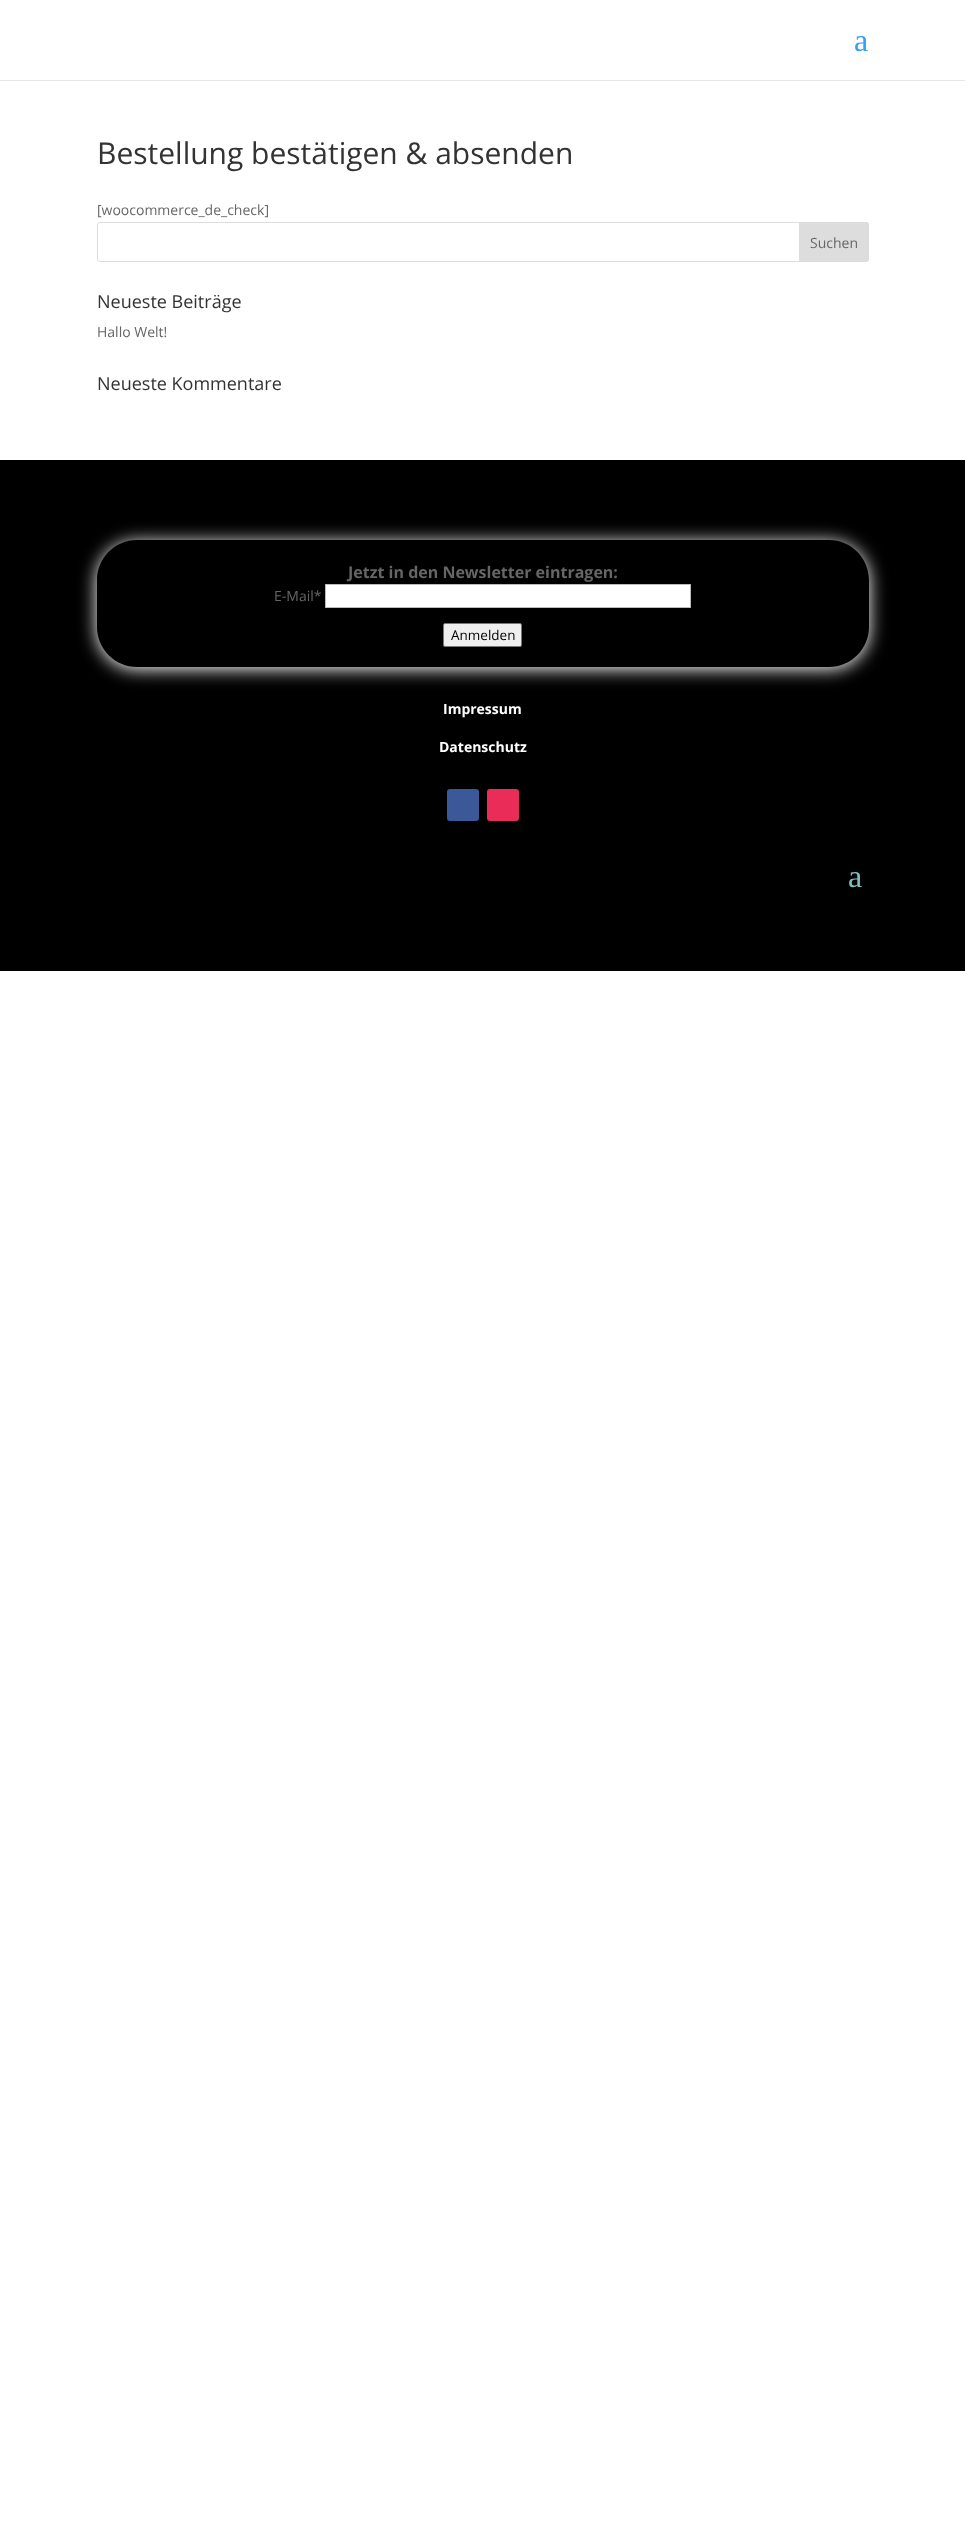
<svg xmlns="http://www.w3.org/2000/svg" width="965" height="2522">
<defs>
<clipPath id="clip1"><path d="M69 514h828v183h-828zm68 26h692c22 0 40 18 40 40v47c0 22-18 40-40 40h-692c-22 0-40-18-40-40v-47c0-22 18-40 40-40z" clip-rule="evenodd"/></clipPath>
</defs>
<rect width="100%" height="100%" fill="#fff"/>
<rect y="80" width="965" height="1" fill="#e6e6e6"/>
<text x="854" y="51" style="font-family:Liberation Serif;font-size:32px;fill:#2ea3f2">a</text>
<text x="97" y="164" style="font-family:Open Sans;font-size:30px;fill:#333">Bestellung bestätigen &amp; absenden</text>
<text x="97" y="215" style="font-family:Open Sans;font-size:14px;fill:#666">[woocommerce_de_check]</text>
<rect x="97.5" y="222.5" width="771" height="39" rx="2.5" fill="none" stroke="#ddd"/>
<path d="M799.5 222.5h66.5c1.5 0 2.5 1 2.5 2.5v34c0 1.5-1 2.5-2.5 2.5h-66.5z" fill="#ddd" stroke="#ddd"/>
<text x="810" y="248" style="font-family:Open Sans;font-size:14px;fill:#666">Suchen</text>
<text x="97" y="308" style="font-family:Open Sans;font-size:18px;fill:#333">Neueste Beiträge</text>
<text x="97" y="337" style="font-family:Open Sans;font-size:14px;fill:#666">Hallo Welt!</text>
<text x="97" y="390" style="font-family:Open Sans;font-size:18px;fill:#333">Neueste Kommentare</text>
<rect y="460" width="965" height="511" fill="#000"/>
<g clip-path="url(#clip1)">
<rect x="97" y="542" width="772" height="127" rx="40" fill="#fff" filter="blur(9px)"/>
</g>
<text x="348" y="578" style="font-family:Open Sans;font-size:16px;font-weight:bold;fill:#666">Jetzt in den Newsletter eintragen:</text>
<text x="274" y="601" style="font-family:Open Sans;font-size:14px;fill:#666">E-Mail*</text>
<rect x="325.5" y="584.5" width="365" height="23" fill="#fff" stroke="#bbb"/>
<rect x="443.5" y="623.5" width="78" height="23" rx="1.5" fill="#efefef" stroke="#767676"/>
<text x="451" y="640" style="font-family:Open Sans;font-size:13.5px;fill:#000">Anmelden</text>
<text x="443" y="714" style="font-family:Open Sans;font-size:14px;font-weight:bold;fill:#fff">Impressum</text>
<text x="439" y="752" style="font-family:Open Sans;font-size:14px;font-weight:bold;fill:#fff">Datenschutz</text>
<rect x="447" y="789" width="32" height="32" rx="3" fill="#3b5998"/>
<rect x="487" y="789" width="32" height="32" rx="3" fill="#ea2c59"/>
<text x="848" y="887" style="font-family:Liberation Serif;font-size:32px;fill:#7ebec5">a</text>
</svg>
